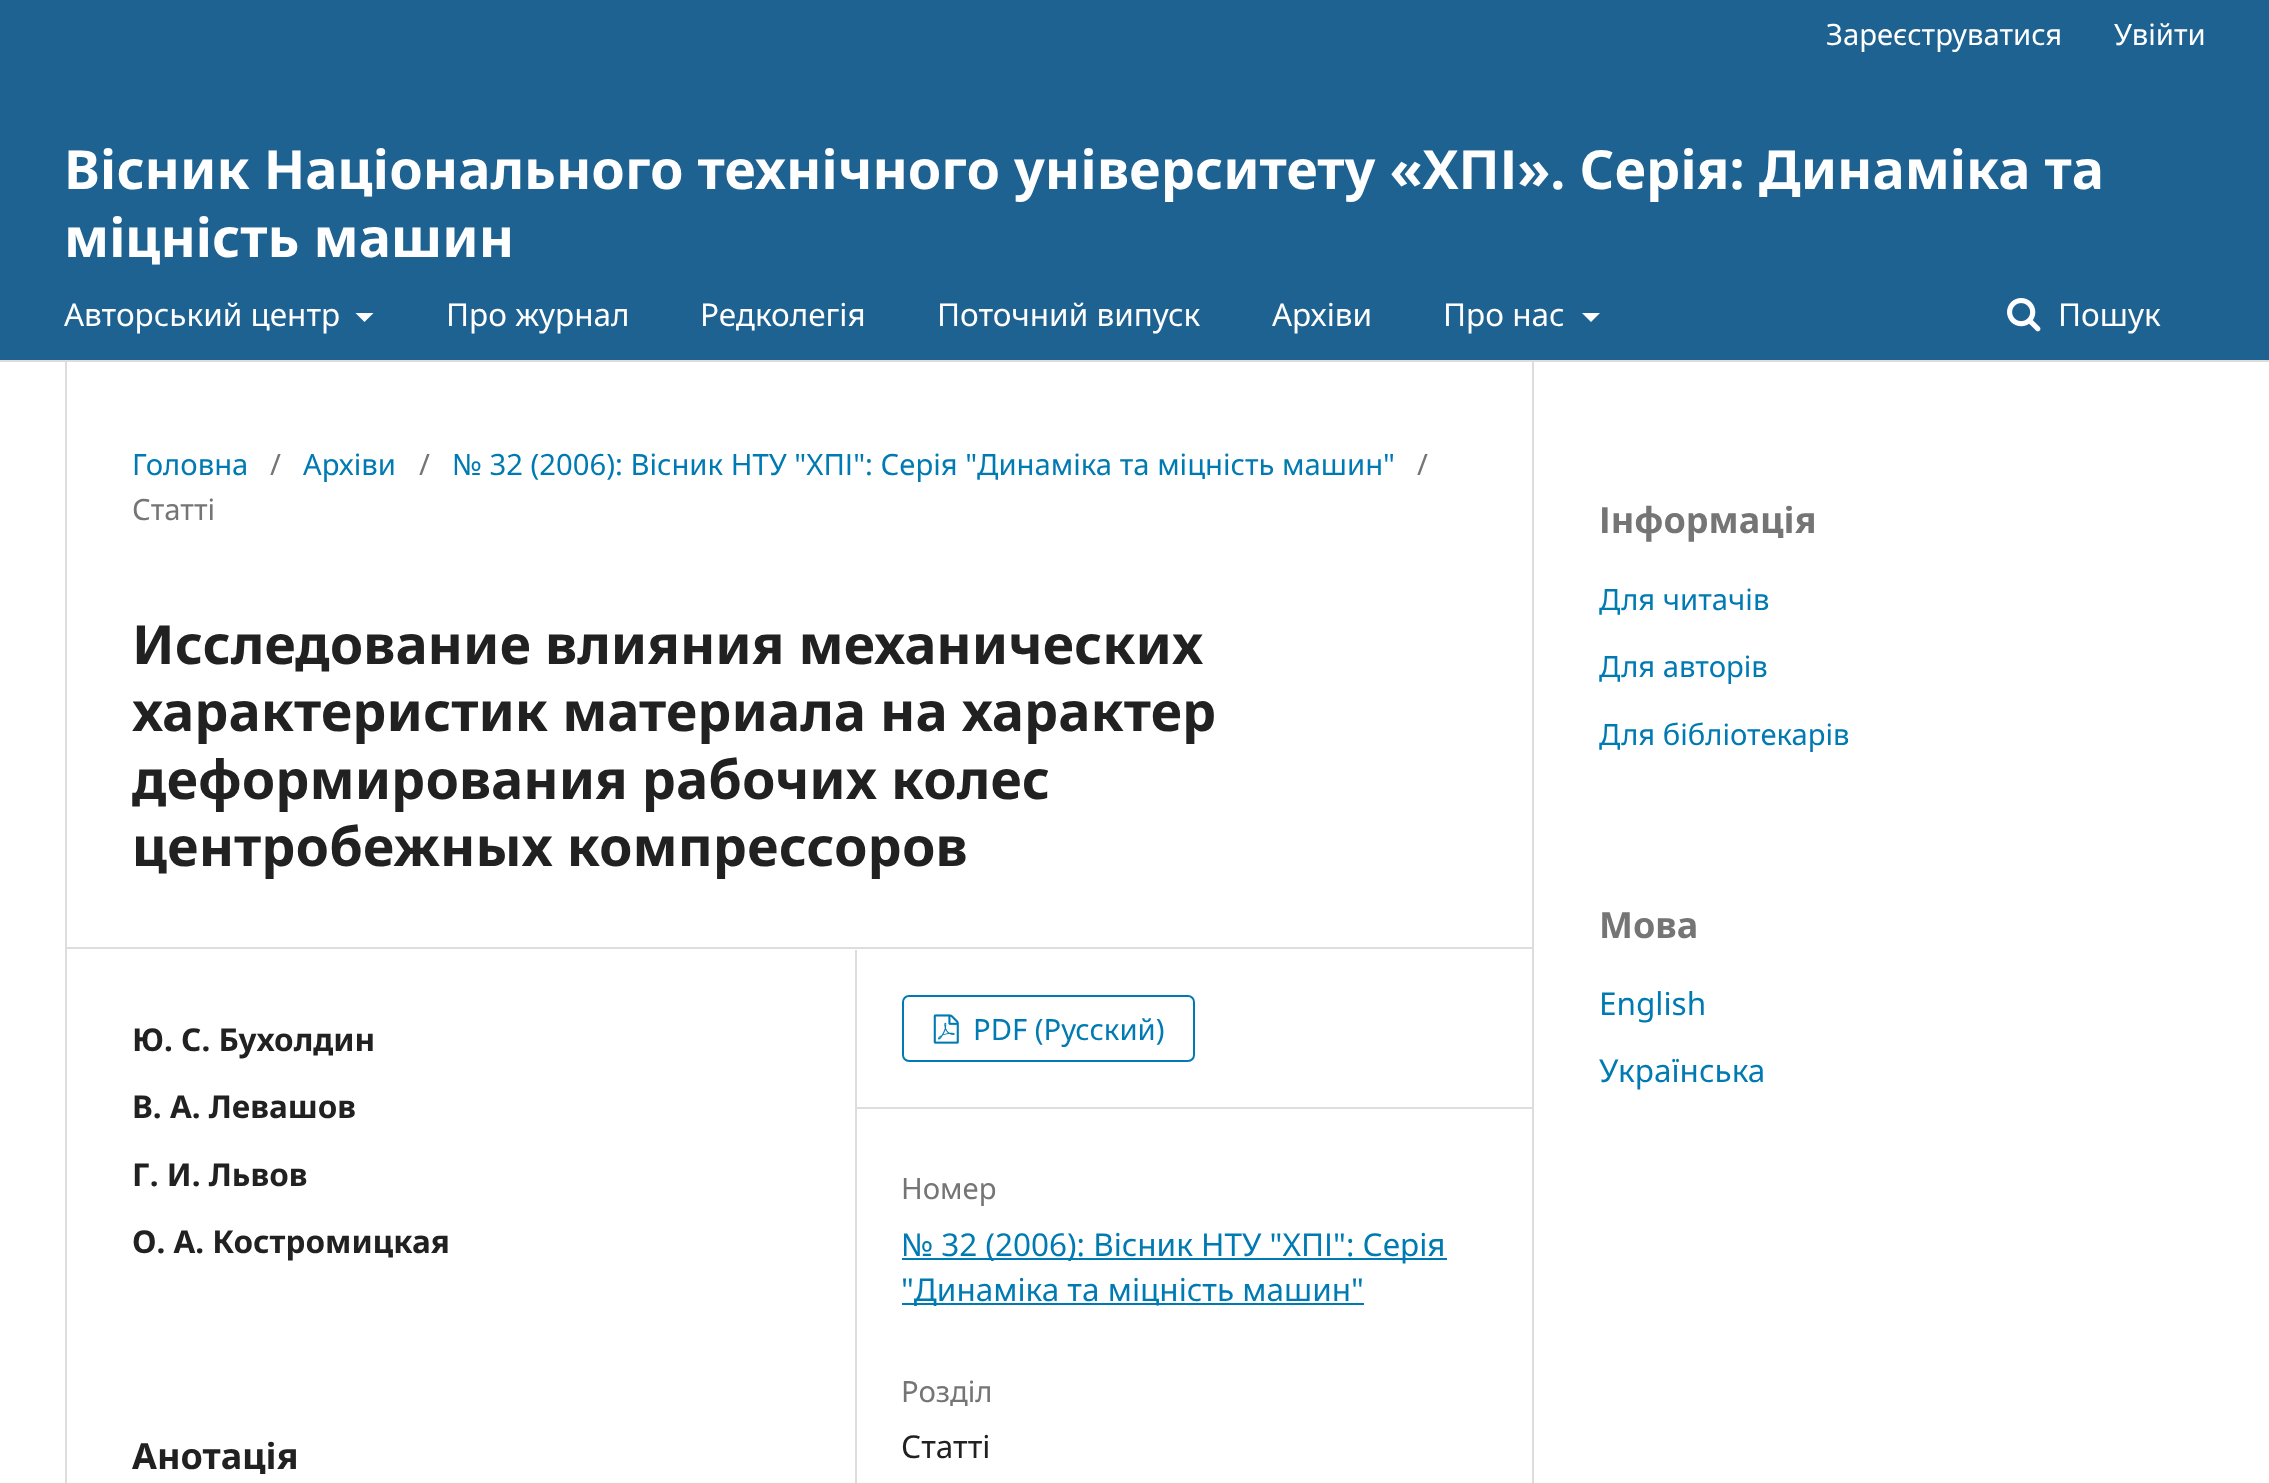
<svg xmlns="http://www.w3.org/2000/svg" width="2269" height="1483">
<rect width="100%" height="100%" fill="#fff"/>
<rect width="2269" height="360" fill="#1e6292"/>
<rect y="360" width="2269" height="2" fill="#ddd"/>
<text x="1826" y="45" style="font-family:Noto Sans;font-size:29.25px;fill:#fff">Зареєструватися</text>
<text x="2114" y="45" style="font-family:Noto Sans;font-size:29.25px;fill:#fff">Увійти</text>
<text x="64" y="326" style="font-family:Noto Sans;font-size:31.5px;fill:#fff">Авторський центр</text>
<path d="M355.5 313h18l-9 9z" fill="#fff"/>
<text x="446" y="326" style="font-family:Noto Sans;font-size:31.5px;fill:#fff">Про журнал</text>
<text x="700" y="326" style="font-family:Noto Sans;font-size:31.5px;fill:#fff">Редколегія</text>
<text x="937" y="326" style="font-family:Noto Sans;font-size:31.5px;fill:#fff">Поточний випуск</text>
<text x="1272" y="326" style="font-family:Noto Sans;font-size:31.5px;fill:#fff">Архіви</text>
<text x="1443" y="326" style="font-family:Noto Sans;font-size:31.5px;fill:#fff">Про нас</text>
<path d="M1582 313h18l-9 9z" fill="#fff"/>
<image x="2007" y="298" width="34" height="34" href="media/1.png"/>
<text x="2058" y="326" style="font-family:Noto Sans;font-size:31.5px;fill:#fff">Пошук</text>
<text x="64" y="189" style="font-family:Noto Sans;font-size:54px;font-weight:bold;fill:#fff">Вісник Національного технічного університету «ХПІ». Серія: Динамiка та</text>
<text x="64" y="257" style="font-family:Noto Sans;font-size:54px;font-weight:bold;fill:#fff">мiцнiсть машин</text>
<rect x="65" y="947" width="1467" height="2" fill="#ddd"/>
<rect x="65" y="362" width="2" height="1121" fill="#ddd"/>
<text x="132" y="475" style="font-family:Noto Sans;font-size:29.25px;fill:#007ab2">Головна</text>
<text x="270" y="475" style="font-family:Noto Sans;font-size:29.25px;fill:#757575">/</text>
<text x="303" y="475" style="font-family:Noto Sans;font-size:29.25px;fill:#007ab2">Архіви</text>
<text x="419" y="475" style="font-family:Noto Sans;font-size:29.25px;fill:#757575">/</text>
<text x="452" y="475" style="font-family:Noto Sans;font-size:29.25px;fill:#007ab2">№ 32 (2006): Вісник НТУ "ХПІ": Серія "Динаміка та міцність машин"</text>
<text x="1417" y="475" style="font-family:Noto Sans;font-size:29.25px;fill:#757575">/</text>
<text x="132" y="520" style="font-family:Noto Sans;font-size:29.25px;fill:#757575">Статті</text>
<text x="132" y="664" style="font-family:Noto Sans;font-size:54px;font-weight:bold;fill:#212121">Исследование влияния механических</text>
<text x="132" y="731" style="font-family:Noto Sans;font-size:54px;font-weight:bold;fill:#212121">характеристик материала на характер</text>
<text x="132" y="799" style="font-family:Noto Sans;font-size:54px;font-weight:bold;fill:#212121">деформирования рабочих колес</text>
<text x="132" y="866" style="font-family:Noto Sans;font-size:54px;font-weight:bold;fill:#212121">центробежных компрессоров</text>
<rect x="855" y="950" width="2" height="533" fill="#ddd"/>
<text x="132" y="1051" style="font-family:Noto Sans;font-size:31.5px;font-weight:bold;fill:#212121">Ю. С. Бухолдин</text>
<text x="132" y="1118" style="font-family:Noto Sans;font-size:31.5px;font-weight:bold;fill:#212121">В. А. Левашов</text>
<text x="132" y="1186" style="font-family:Noto Sans;font-size:31.5px;font-weight:bold;fill:#212121">Г. И. Львов</text>
<text x="132" y="1253" style="font-family:Noto Sans;font-size:31.5px;font-weight:bold;fill:#212121">О. А. Костромицкая</text>
<text x="132" y="1469" style="font-family:Noto Sans;font-size:36px;font-weight:bold;fill:#212121">Анотація</text>
<rect x="857" y="1107" width="675" height="2" fill="#ddd"/>
<rect x="903" y="996" width="291" height="65" rx="6" fill="none" stroke="#007ab2" stroke-width="2"/>
<image x="933" y="1014" width="26" height="30" href="media/2.png"/>
<text x="973" y="1040" style="font-family:Noto Sans;font-size:29.25px;fill:#007ab2">PDF (Русский)</text>
<text x="901" y="1199" style="font-family:Noto Sans;font-size:29.25px;fill:#757575">Номер</text>
<rect x="902" y="1258" width="545" height="2" fill="#007ab2"/>
<text x="901" y="1256" style="font-family:Noto Sans;font-size:31.5px;fill:#007ab2">№ 32 (2006): Вісник НТУ "ХПІ": Серія</text>
<rect x="902" y="1303" width="462" height="2" fill="#007ab2"/>
<text x="901" y="1301" style="font-family:Noto Sans;font-size:31.5px;fill:#007ab2">"Динаміка та міцність машин"</text>
<text x="901" y="1402" style="font-family:Noto Sans;font-size:29.25px;fill:#757575">Розділ</text>
<text x="901" y="1458" style="font-family:Noto Sans;font-size:31.5px;fill:#212121">Статті</text>
<rect x="1532" y="362" width="2" height="1121" fill="#ddd"/>
<text x="1599" y="533" style="font-family:Noto Sans;font-size:36px;font-weight:bold;fill:#757575">Інформація</text>
<text x="1599" y="610" style="font-family:Noto Sans;font-size:29.25px;fill:#007ab2">Для читачів</text>
<text x="1599" y="677" style="font-family:Noto Sans;font-size:29.25px;fill:#007ab2">Для авторів</text>
<text x="1599" y="745" style="font-family:Noto Sans;font-size:29.25px;fill:#007ab2">Для бібліотекарів</text>
<text x="1599" y="938" style="font-family:Noto Sans;font-size:36px;font-weight:bold;fill:#757575">Мова</text>
<text x="1599" y="1015" style="font-family:Noto Sans;font-size:31.5px;fill:#007ab2">English</text>
<text x="1599" y="1082" style="font-family:Noto Sans;font-size:31.5px;fill:#007ab2">Українська</text>
</svg>
